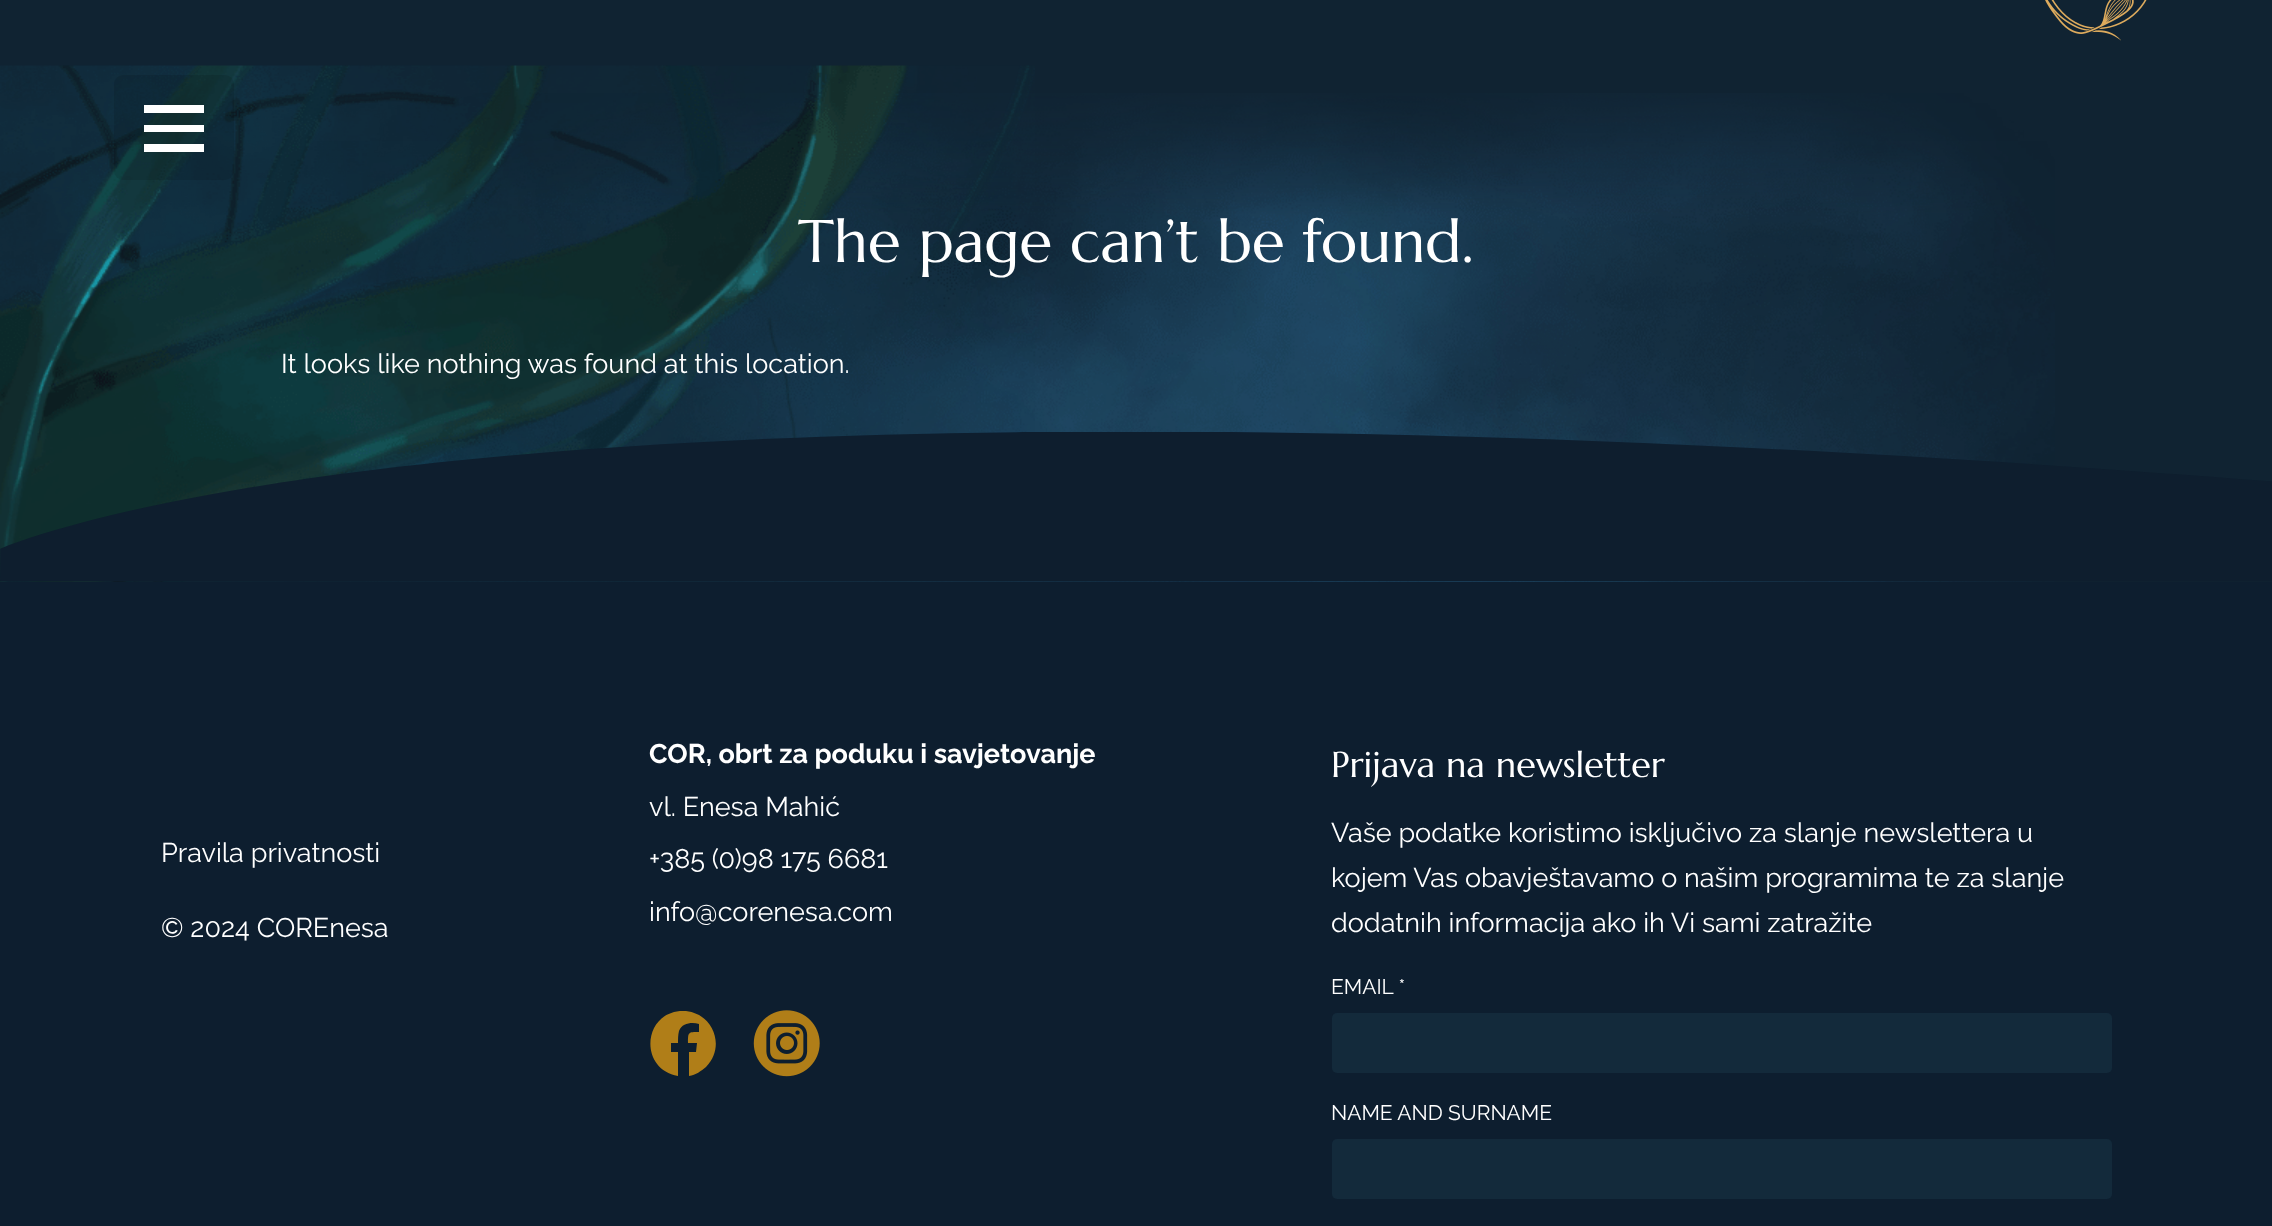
<svg xmlns="http://www.w3.org/2000/svg" width="2272" height="1226">
<rect width="100%" height="100%" fill="#102332"/>
<image x="2045" y="0" width="102" height="41" href="media/1.png"/>
<image x="214" y="93" width="1841" height="489" href="media/2.png"/>
<image x="0" y="65" width="1035" height="517" href="media/3.png"/>
<rect x="114" y="75" width="120" height="105" rx="9" fill="#0000001a"/>
<rect x="144" y="105" width="60" height="8" fill="#fff"/>
<rect x="144" y="125" width="60" height="7" fill="#fff"/>
<rect x="144" y="144" width="60" height="8" fill="#fff"/>
<text x="798" y="262" style="font-family:Marcellus;font-size:60px;fill:#fff">The page can’t be found.</text>
<text x="281" y="373" style="font-family:Raleway;font-size:27px;fill:#fff">It looks like nothing was found at this location.</text>
<image x="0" y="432" width="2272" height="150" href="media/4.png"/>
<rect y="582" width="2272" height="644" fill="#0d1e2f"/>
<text x="161" y="862" style="font-family:Raleway;font-size:27px;fill:#fff">Pravila privatnosti</text>
<text x="161" y="937" style="font-family:Raleway;font-size:27px;fill:#fff">© 2024 COREnesa</text>
<text x="649" y="763" style="font-family:Raleway;font-size:27px;font-weight:bold;fill:#fff">COR, obrt za poduku i savjetovanje</text>
<text x="649" y="816" style="font-family:Raleway;font-size:27px;fill:#fff">vl. Enesa Mahić</text>
<text x="649" y="868" style="font-family:Raleway;font-size:27px;fill:#fff">+385 (0)98 175 6681</text>
<text x="649" y="921" style="font-family:Raleway;font-size:27px;fill:#fff">info@corenesa.com</text>
<path d="M683 1011c29 0 44 35 23 56c-5 4-10 8-17 9v-24h7l1-9h-9c0-11 0-11 11-11v-8c-7-2-17-1-20 7c-1 4-1 8-1 12h-7v9h7v24c-40-7-35-65 5-65z" fill="#b07e18" fill-rule="evenodd"/>
<image x="753" y="1010" width="67" height="67" href="media/5.png"/>
<text x="1331" y="777" style="font-family:Marcellus;font-size:36px;fill:#fff">Prijava na newsletter</text>
<text x="1331" y="842" style="font-family:Raleway;font-size:27px;fill:#fff">Vaše podatke koristimo isključivo za slanje newslettera u</text>
<text x="1331" y="887" style="font-family:Raleway;font-size:27px;fill:#fff">kojem Vas obavještavamo o našim programima te za slanje</text>
<text x="1331" y="932" style="font-family:Raleway;font-size:27px;fill:#fff">dodatnih informacija ako ih Vi sami zatražite</text>
<text x="1331" y="994" style="font-family:Raleway;font-size:21px;fill:#fff">EMAIL *</text>
<rect x="1332" y="1013" width="780" height="60" rx="5" fill="#132a3b"/>
<text x="1331" y="1120" style="font-family:Raleway;font-size:21px;fill:#fff">NAME AND SURNAME</text>
<rect x="1332" y="1139" width="780" height="60" rx="5" fill="#132a3b"/>
</svg>
